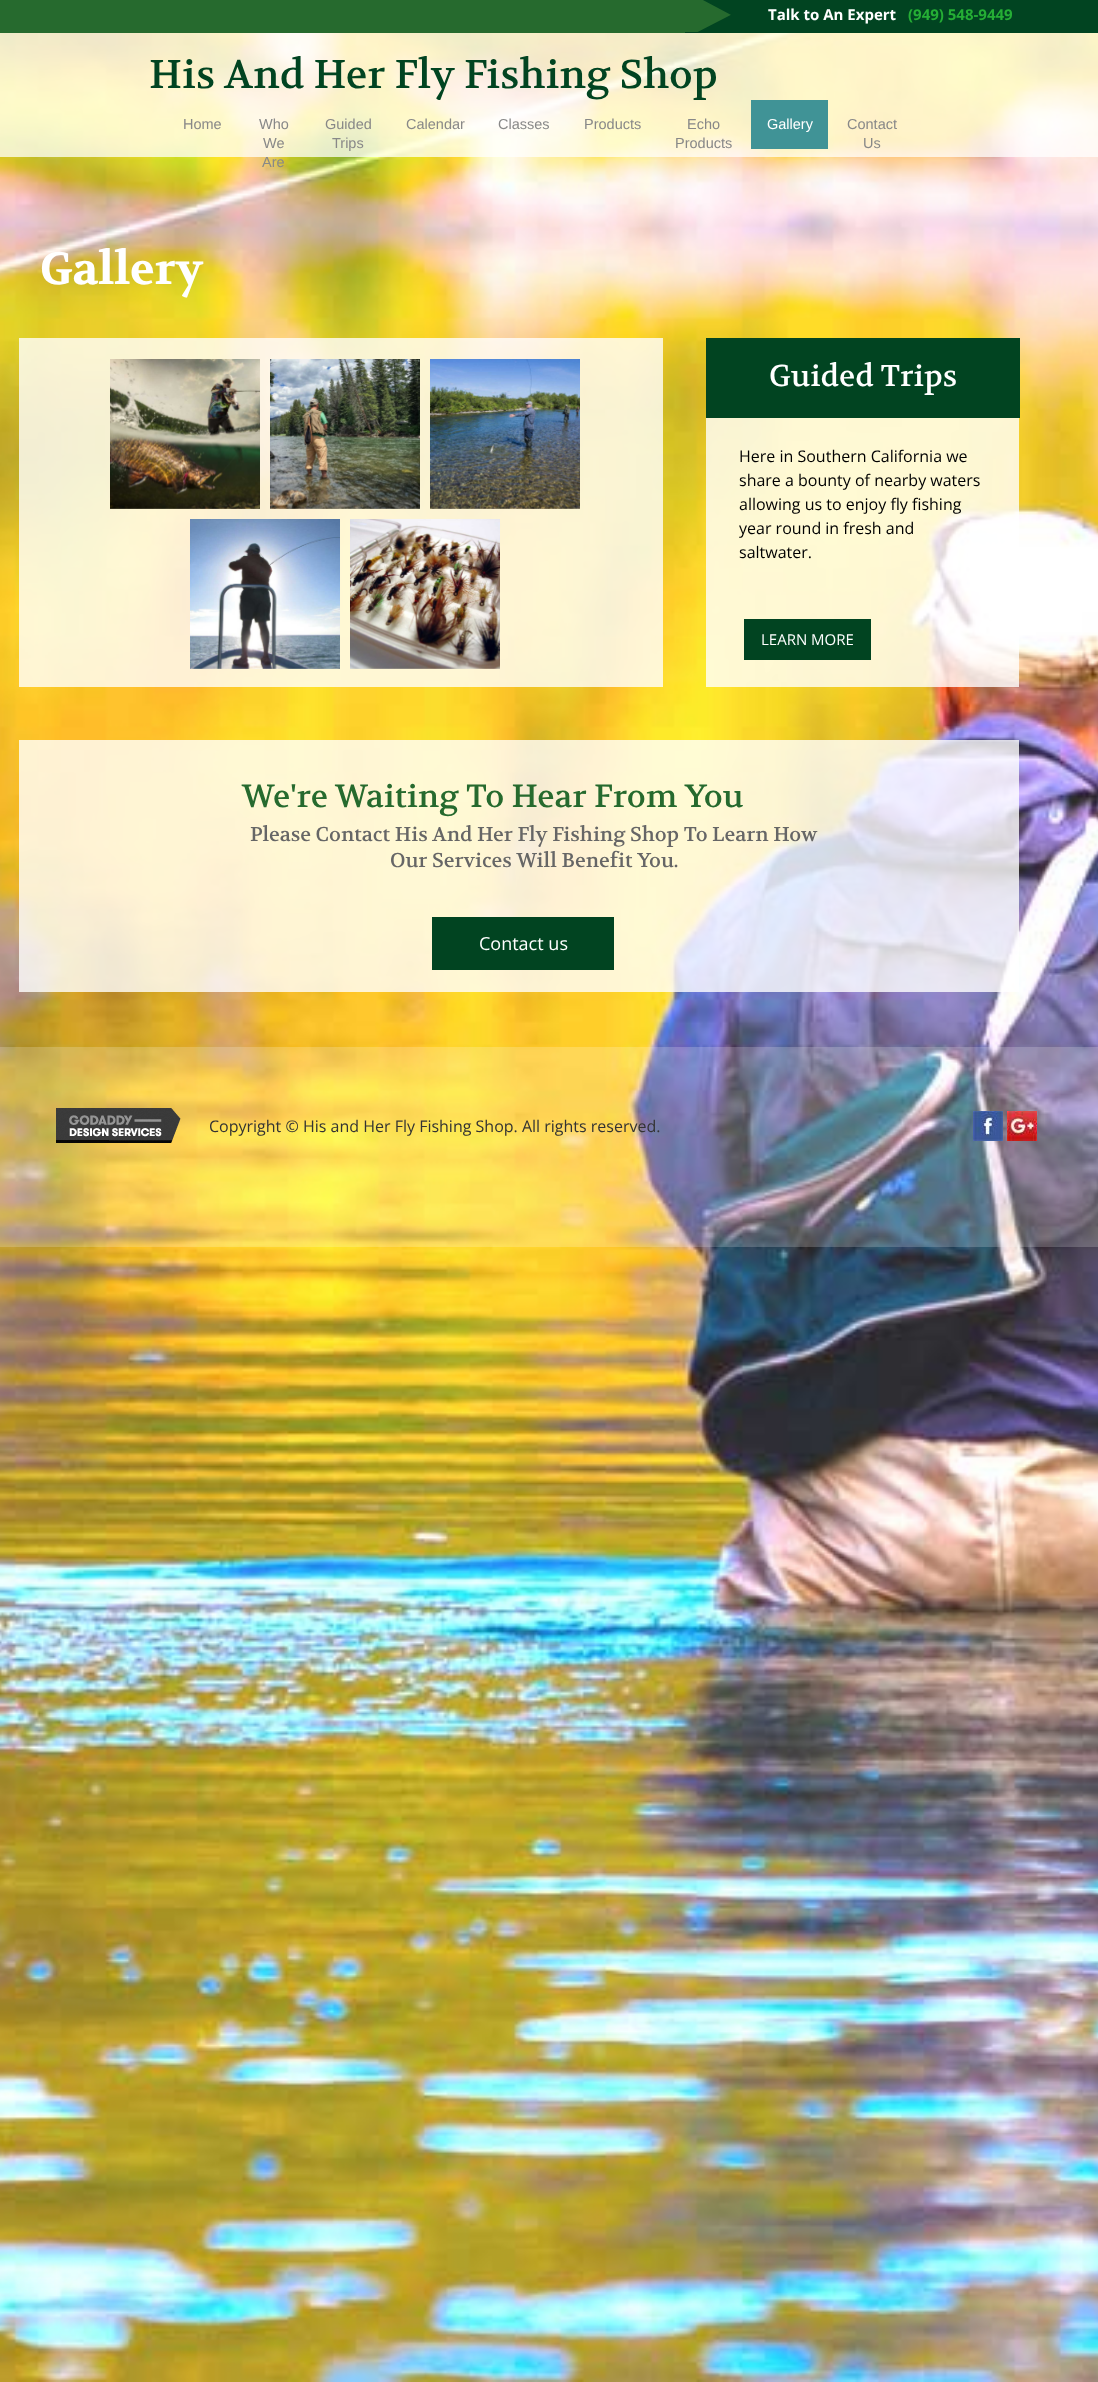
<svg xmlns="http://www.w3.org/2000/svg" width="1098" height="2382">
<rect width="100%" height="100%" fill="#fff"/>
<image x="0" y="33" width="1098" height="2349" href="media/1.png"/>
<rect width="685" height="33" fill="#266a2e"/>
<rect x="685" width="413" height="33" fill="#014421"/>
<image x="685" y="0" width="46" height="32" href="media/2.png"/>
<text x="768" y="20" style="font-family:Open Sans;font-size:15px;font-weight:bold;fill:#fff">Talk to An Expert</text>
<text x="908" y="20" style="font-family:Open Sans;font-size:15px;font-weight:bold;fill:#25ae35">(949) 548-9449</text>
<rect y="33" width="1098" height="124" fill="#ffffffbf"/>
<text x="149" y="88" style="font-family:Volkhov;font-size:40px;fill:#014421">His And Her Fly Fishing Shop</text>
<text x="183" y="129" style="font-family:Liberation Sans;font-size:14.5px;fill:#888">Home</text>
<text x="259" y="129" style="font-family:Liberation Sans;font-size:14.5px;fill:#888">Who</text>
<text x="263" y="148" style="font-family:Liberation Sans;font-size:14.5px;fill:#888">We</text>
<text x="262" y="167" style="font-family:Liberation Sans;font-size:14.5px;fill:#888">Are</text>
<text x="325" y="129" style="font-family:Liberation Sans;font-size:14.5px;fill:#888">Guided</text>
<text x="332" y="148" style="font-family:Liberation Sans;font-size:14.5px;fill:#888">Trips</text>
<text x="406" y="129" style="font-family:Liberation Sans;font-size:14.5px;fill:#888">Calendar</text>
<text x="498" y="129" style="font-family:Liberation Sans;font-size:14.5px;fill:#888">Classes</text>
<text x="584" y="129" style="font-family:Liberation Sans;font-size:14.5px;fill:#888">Products</text>
<text x="687" y="129" style="font-family:Liberation Sans;font-size:14.5px;fill:#888">Echo</text>
<text x="675" y="148" style="font-family:Liberation Sans;font-size:14.5px;fill:#888">Products</text>
<rect x="751" y="100" width="77" height="49" fill="#409396"/>
<text x="767" y="129" style="font-family:Liberation Sans;font-size:14.5px;fill:#fff">Gallery</text>
<text x="847" y="129" style="font-family:Liberation Sans;font-size:14.5px;fill:#888">Contact</text>
<text x="863" y="148" style="font-family:Liberation Sans;font-size:14.5px;fill:#888">Us</text>
<text x="40" y="284" style="font-family:Volkhov;font-size:45px;font-weight:bold;fill:#fff">Gallery</text>
<rect x="19" y="338" width="644" height="349" fill="#ffffffcc"/>
<rect x="706" y="338" width="314" height="80" fill="#014421"/>
<image x="110" y="359" width="150" height="150" href="media/3.png"/>
<image x="270" y="359" width="150" height="150" href="media/4.png"/>
<image x="430" y="359" width="150" height="150" href="media/5.png"/>
<image x="190" y="519" width="150" height="150" href="media/6.png"/>
<image x="350" y="519" width="150" height="150" href="media/7.png"/>
<text x="769" y="386" style="font-family:Volkhov;font-size:30px;fill:#fff">Guided Trips</text>
<rect x="706" y="418" width="313" height="269" fill="#ffffffcc"/>
<text x="739" y="462" style="font-family:Open Sans;font-size:16px;fill:#000">Here in Southern California we</text>
<text x="739" y="486" style="font-family:Open Sans;font-size:16px;fill:#000">share a bounty of nearby waters</text>
<text x="739" y="510" style="font-family:Open Sans;font-size:16px;fill:#000">allowing us to enjoy fly fishing</text>
<text x="739" y="534" style="font-family:Open Sans;font-size:16px;fill:#000">year round in fresh and</text>
<text x="739" y="558" style="font-family:Open Sans;font-size:16px;fill:#000">saltwater.</text>
<rect x="744" y="619" width="127" height="41" fill="#014421"/>
<text x="761" y="645" style="font-family:Open Sans;font-size:15px;fill:#fff">LEARN MORE</text>
<rect x="19" y="740" width="1000" height="252" fill="#ffffffcc"/>
<text x="242" y="807" style="font-family:Volkhov;font-size:32px;fill:#266a2e">We're Waiting To Hear From You</text>
<text x="250" y="841" style="font-family:Volkhov;font-size:20px;fill:#666">Please Contact His And Her Fly Fishing Shop To Learn How</text>
<text x="390" y="867" style="font-family:Volkhov;font-size:20px;fill:#666">Our Services Will Benefit You.</text>
<rect x="432" y="917" width="182" height="53" fill="#014421"/>
<text x="479" y="950" style="font-family:Open Sans;font-size:18px;fill:#fff">Contact us</text>
<rect y="1047" width="1098" height="200" fill="#ffffff33"/>
<image x="56" y="1108" width="125" height="35" href="media/8.png"/>
<text x="209" y="1132" style="font-family:Open Sans;font-size:16px;fill:#333">Copyright © His and Her Fly Fishing Shop. All rights reserved.</text>
<image x="973" y="1111" width="30" height="30" href="media/9.png"/>
<image x="1007" y="1111" width="30" height="30" href="media/10.png"/>
</svg>
